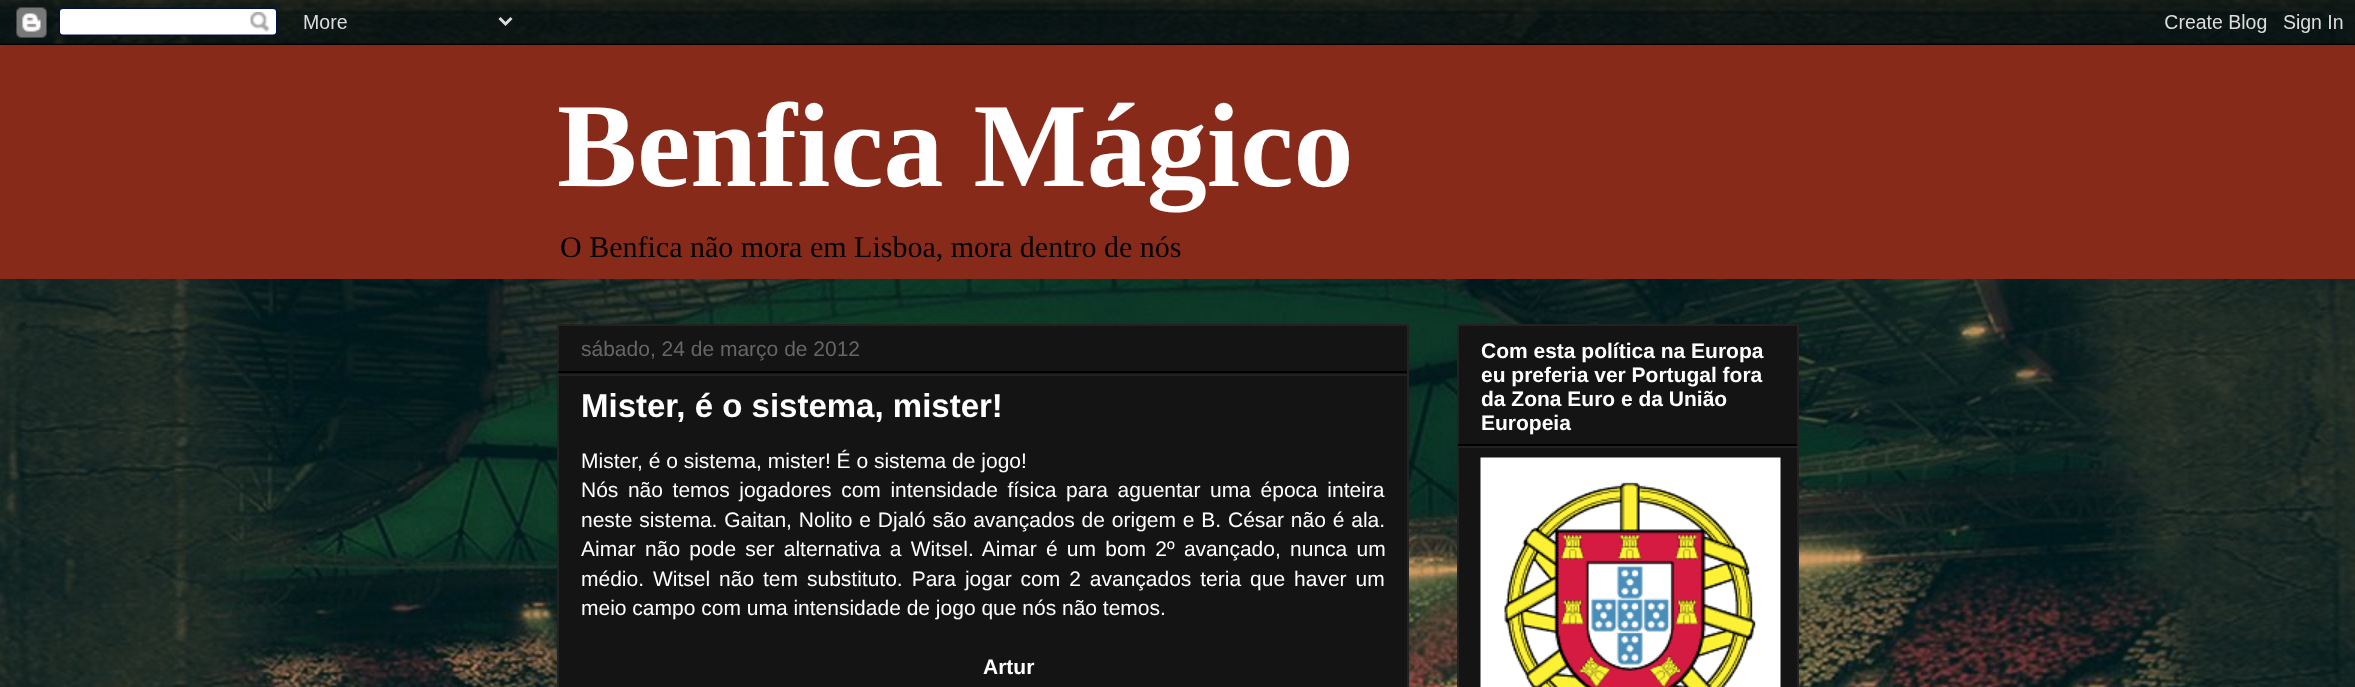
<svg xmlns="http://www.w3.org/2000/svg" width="2355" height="687">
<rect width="100%" height="100%" fill="#fff"/>
<image x="0" y="0" width="2355" height="687" href="media/1.png"/>
<image x="0" y="0" width="2355" height="45" href="media/2.png"/>
<rect y="45" width="2355" height="234" fill="#882a1a"/>
<text x="557" y="186" style="font-family:Liberation Serif;font-size:120px;font-weight:bold;fill:#fff">Benfica Mágico</text>
<text x="560" y="257" style="font-family:Liberation Serif;font-size:30px;fill:#000">O Benfica não mora em Lisboa, mora dentro de nós</text>
<rect x="558" y="325" width="850" height="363" fill="#141414" stroke="#222" stroke-width="2"/>
<rect x="558" y="371" width="849" height="2" fill="#000"/>
<text x="581" y="356" style="font-family:Liberation Sans;font-size:21px;fill:#666">sábado, 24 de março de 2012</text>
<rect x="558" y="374" width="849" height="2" fill="#222"/>
<text x="581" y="417" style="font-family:Liberation Sans;font-size:33px;font-weight:bold;fill:#fff">Mister, é o sistema, mister!</text>
<text x="581" y="468" style="font-family:Liberation Sans;font-size:21px;fill:#fff">Mister, é o sistema, mister! É o sistema de jogo!</text>
<text x="581" y="497" word-spacing="3.75" style="font-family:Liberation Sans;font-size:21px;fill:#fff">Nós não temos jogadores com intensidade física para aguentar uma época inteira</text>
<text x="581" y="527" word-spacing="1" style="font-family:Liberation Sans;font-size:21px;fill:#fff">neste sistema. Gaitan, Nolito e Djaló são avançados de origem e B. César não é ala.</text>
<text x="581" y="556" word-spacing="3.4" style="font-family:Liberation Sans;font-size:21px;fill:#fff">Aimar não pode ser alternativa a Witsel. Aimar é um bom 2º avançado, nunca um</text>
<text x="581" y="586" word-spacing="3.1" style="font-family:Liberation Sans;font-size:21px;fill:#fff">médio. Witsel não tem substituto. Para jogar com 2 avançados teria que haver um</text>
<text x="581" y="615" style="font-family:Liberation Sans;font-size:21px;fill:#fff">meio campo com uma intensidade de jogo que nós não temos.</text>
<text x="983" y="674" style="font-family:Liberation Sans;font-size:21px;font-weight:bold;fill:#fff">Artur</text>
<rect x="1458" y="325" width="340" height="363" fill="#141414" stroke="#222" stroke-width="2"/>
<rect x="1458" y="444" width="339" height="2" fill="#000"/>
<text x="1481" y="358" style="font-family:Liberation Sans;font-size:21px;font-weight:bold;fill:#fff">Com esta política na Europa</text>
<text x="1481" y="382" style="font-family:Liberation Sans;font-size:21px;font-weight:bold;fill:#fff">eu preferia ver Portugal fora</text>
<text x="1481" y="406" style="font-family:Liberation Sans;font-size:21px;font-weight:bold;fill:#fff">da Zona Euro e da União</text>
<text x="1481" y="430" style="font-family:Liberation Sans;font-size:21px;font-weight:bold;fill:#fff">Europeia</text>
<rect x="1458" y="446" width="339" height="2" fill="#222"/>
<image x="1480" y="457" width="301" height="230" href="media/3.png"/>
</svg>
